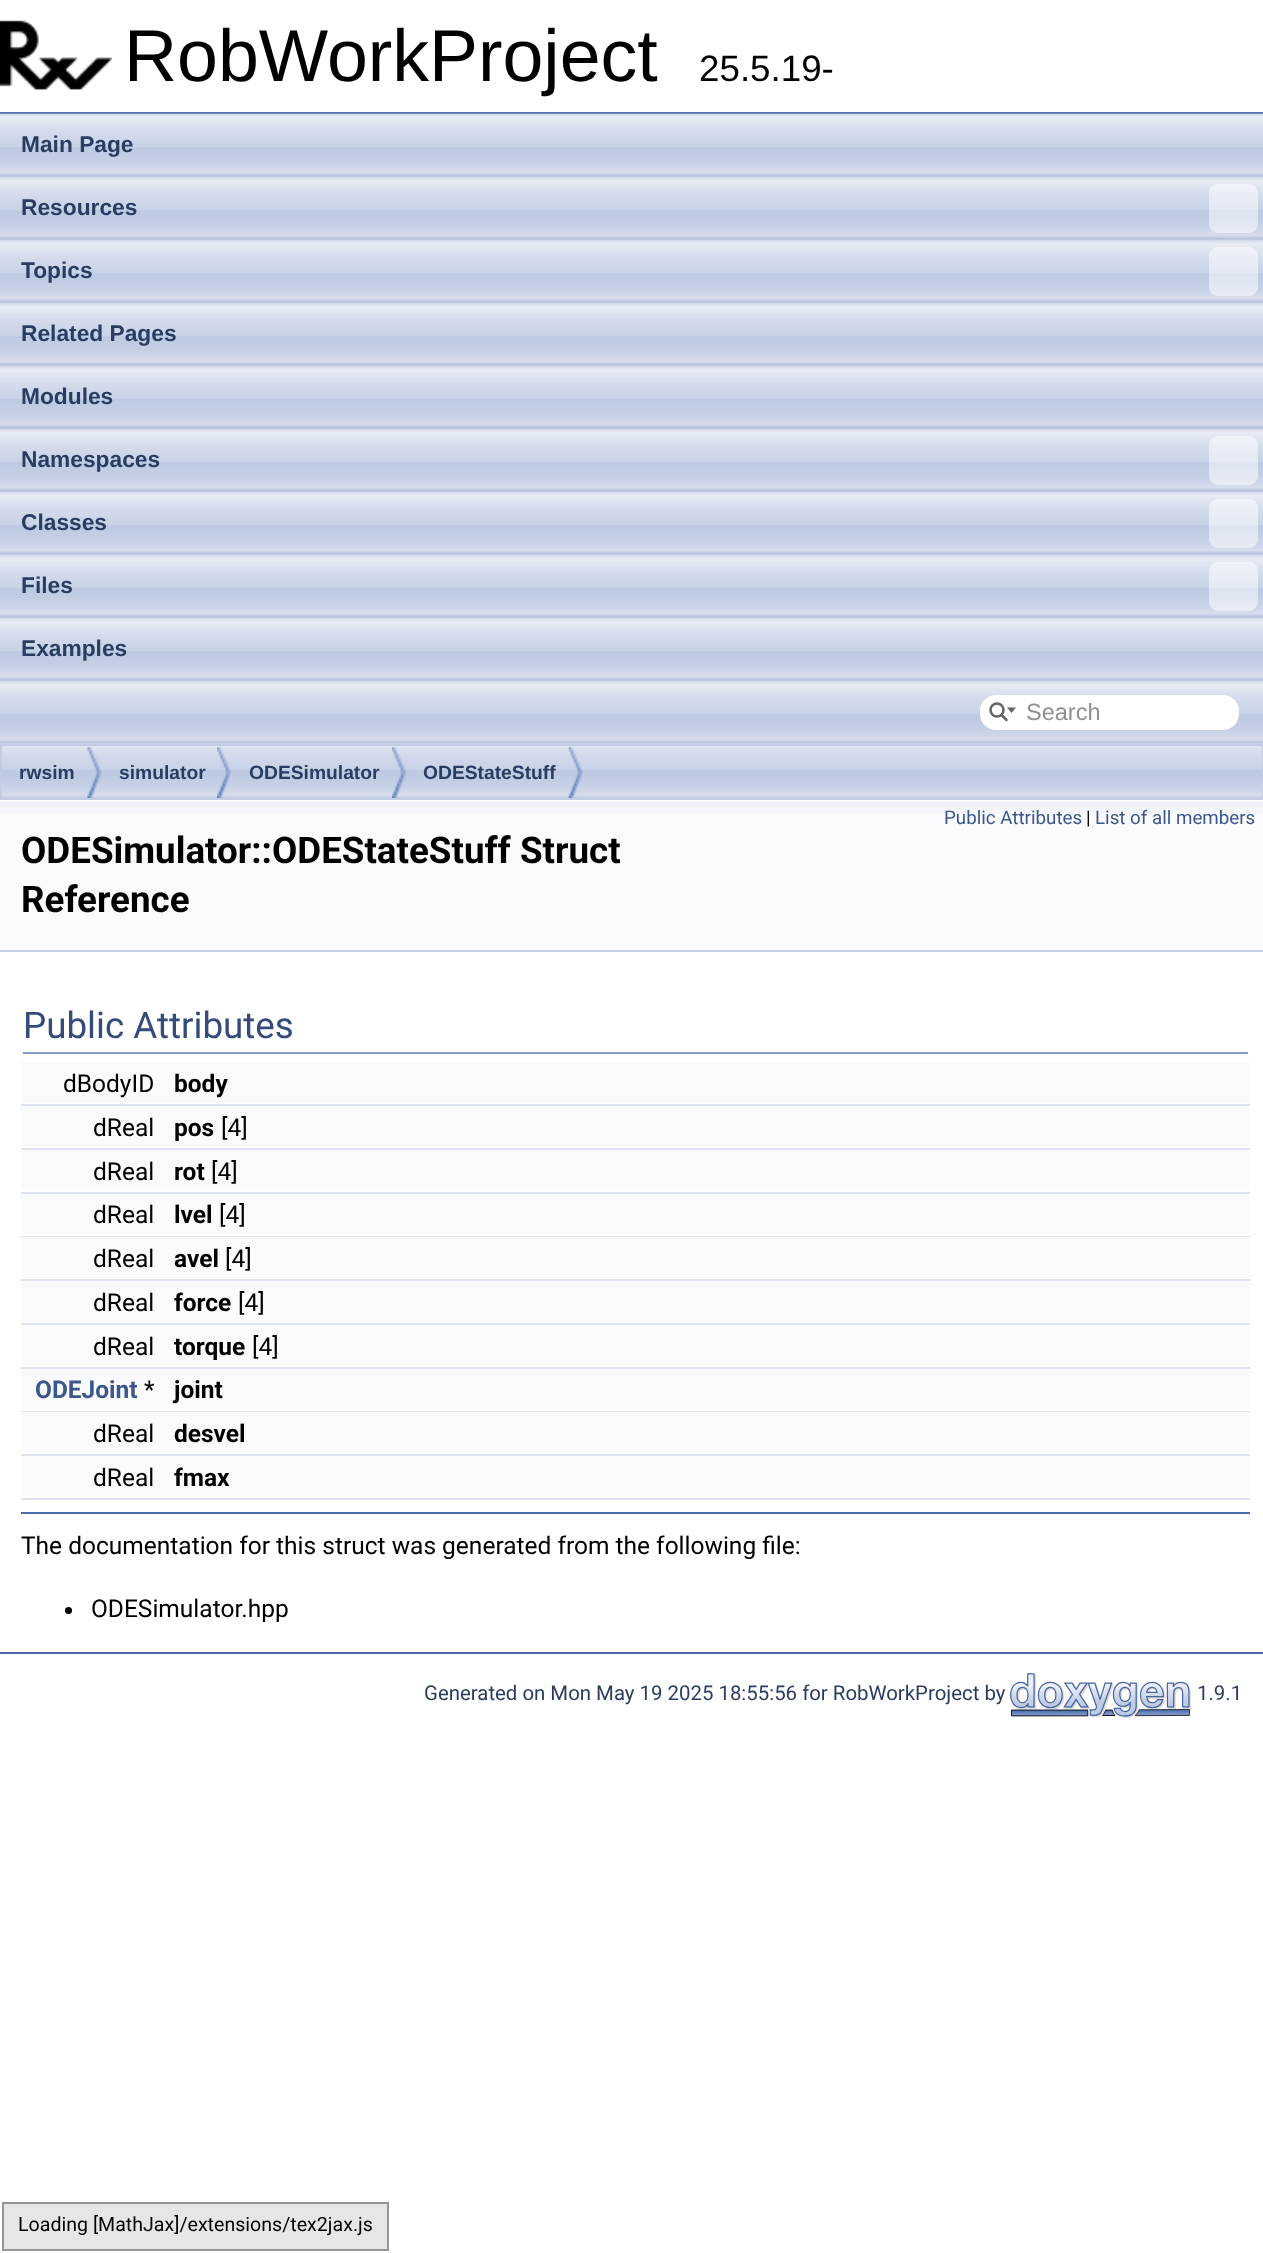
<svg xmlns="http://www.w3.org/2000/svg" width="1263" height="2253">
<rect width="100%" height="100%" fill="#fff"/>
<rect y="112" width="1263" height="2" fill="#5373b4"/>
<image x="0" y="20" width="112" height="70" href="media/1.png"/>
<text x="124" y="81" style="font-family:Liberation Sans;font-size:73.5px;fill:#000">RobWorkProject</text>
<text x="699" y="81" style="font-family:Liberation Sans;font-size:36.75px;fill:#000">25.5.19-</text>
<image x="0" y="743" width="1263" height="55" href="media/3.png"/>
<image x="0" y="113" width="1263" height="631" href="media/2.png"/>
<text x="21" y="152" style="font-family:Liberation Sans;font-size:22.75px;font-weight:bold;fill:#2a3d61">Main Page</text>
<text x="21" y="215" style="font-family:Liberation Sans;font-size:22.75px;font-weight:bold;fill:#2a3d61">Resources</text>
<rect x="1209" y="184" width="49" height="49" rx="9" fill="#ffffff80"/>
<text x="21" y="278" style="font-family:Liberation Sans;font-size:22.75px;font-weight:bold;fill:#2a3d61">Topics</text>
<rect x="1209" y="247" width="49" height="49" rx="9" fill="#ffffff80"/>
<text x="21" y="341" style="font-family:Liberation Sans;font-size:22.75px;font-weight:bold;fill:#2a3d61">Related Pages</text>
<text x="21" y="404" style="font-family:Liberation Sans;font-size:22.75px;font-weight:bold;fill:#2a3d61">Modules</text>
<text x="21" y="467" style="font-family:Liberation Sans;font-size:22.75px;font-weight:bold;fill:#2a3d61">Namespaces</text>
<rect x="1209" y="436" width="49" height="49" rx="9" fill="#ffffff80"/>
<text x="21" y="530" style="font-family:Liberation Sans;font-size:22.75px;font-weight:bold;fill:#2a3d61">Classes</text>
<rect x="1209" y="499" width="49" height="49" rx="9" fill="#ffffff80"/>
<text x="21" y="593" style="font-family:Liberation Sans;font-size:22.75px;font-weight:bold;fill:#2a3d61">Files</text>
<rect x="1209" y="562" width="49" height="49" rx="9" fill="#ffffff80"/>
<text x="21" y="656" style="font-family:Liberation Sans;font-size:22.75px;font-weight:bold;fill:#2a3d61">Examples</text>
<rect x="980" y="695" width="259" height="35" rx="16" fill="#fff"/>
<circle cx="997" cy="710" r="6.5" fill="none" stroke="#656565" stroke-width="2.5"/>
<path d="M1007 707.5l4.5 5.5l4.5-5.5z" fill="#656565"/>
<path d="M1001.5 715l5 5" fill="none" stroke="#656565" stroke-width="2.5" stroke-linecap="round"/>
<text x="1026" y="720" style="font-family:Liberation Sans;font-size:23.5px;fill:#909090">Search</text>
<rect x="1" y="745" width="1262" height="54" fill="none" stroke="#c2cde4" stroke-width="2"/>
<image x="87" y="747" width="15" height="51" href="media/4.png"/>
<text x="19" y="779" style="font-family:Liberation Sans;font-size:19.25px;font-weight:bold;fill:#2a3d61">rwsim</text>
<image x="217" y="747" width="14" height="51" href="media/5.png"/>
<text x="119" y="779" style="font-family:Liberation Sans;font-size:19.25px;font-weight:bold;fill:#2a3d61">simulator</text>
<image x="392" y="747" width="14" height="51" href="media/5.png"/>
<text x="249" y="779" style="font-family:Liberation Sans;font-size:19.25px;font-weight:bold;fill:#2a3d61">ODESimulator</text>
<image x="568" y="747" width="15" height="51" href="media/6.png"/>
<text x="423" y="779" style="font-family:Liberation Sans;font-size:19.25px;font-weight:bold;fill:#2a3d61">ODEStateStuff</text>
<rect y="814" width="1263" height="136" fill="#f9fafc"/>
<image x="0" y="800" width="1263" height="14" href="media/7.png"/>
<rect y="950" width="1263" height="2" fill="#c4cfe5"/>
<text x="944" y="824" style="font-family:Roboto;font-size:18.75px;fill:#3d578c">Public Attributes</text>
<text x="1086" y="824" style="font-family:Roboto;font-size:18.75px;fill:#000">|</text>
<text x="1095" y="824" style="font-family:Roboto;font-size:18.75px;fill:#3d578c">List of all members</text>
<text x="21" y="863" style="font-family:Roboto;font-size:36.75px;font-weight:bold;fill:#000">ODESimulator::ODEStateStuff Struct</text>
<text x="21" y="912" style="font-family:Roboto;font-size:36.75px;font-weight:bold;fill:#000">Reference</text>
<rect x="23" y="1052" width="1225" height="2" fill="#879ecb"/>
<text x="23" y="1038" style="font-family:Roboto;font-size:36.75px;fill:#354c7b">Public Attributes</text>
<rect x="21" y="1062" width="1229" height="41" fill="#f9fafc"/>
<text x="63" y="1092" style="font-family:Roboto;font-size:24.5px;fill:#000">dBodyID</text>
<text x="174" y="1092" style="font-family:Roboto;font-size:24.5px;font-weight:bold;fill:#000">body</text>
<rect x="21" y="1104" width="1229" height="2" fill="#dee4f0"/>
<rect x="21" y="1106" width="1229" height="40" fill="#f9fafc"/>
<text x="93" y="1136" style="font-family:Roboto;font-size:24.5px;fill:#000">dReal</text>
<text x="174" y="1136" style="font-family:Roboto;font-size:24.5px;font-weight:bold;fill:#000">pos</text>
<text x="221" y="1136" style="font-family:Roboto;font-size:24.5px;fill:#000">[4]</text>
<rect x="21" y="1148" width="1229" height="2" fill="#dee4f0"/>
<rect x="21" y="1150" width="1229" height="40" fill="#f9fafc"/>
<text x="93" y="1180" style="font-family:Roboto;font-size:24.5px;fill:#000">dReal</text>
<text x="174" y="1180" style="font-family:Roboto;font-size:24.5px;font-weight:bold;fill:#000">rot</text>
<text x="211" y="1180" style="font-family:Roboto;font-size:24.5px;fill:#000">[4]</text>
<rect x="21" y="1192" width="1229" height="2" fill="#dee4f0"/>
<rect x="21" y="1194" width="1229" height="40" fill="#f9fafc"/>
<text x="93" y="1223" style="font-family:Roboto;font-size:24.5px;fill:#000">dReal</text>
<text x="174" y="1223" style="font-family:Roboto;font-size:24.5px;font-weight:bold;fill:#000">lvel</text>
<text x="219" y="1223" style="font-family:Roboto;font-size:24.5px;fill:#000">[4]</text>
<rect x="21" y="1236" width="1229" height="1" fill="#dee4f0"/>
<rect x="21" y="1237" width="1229" height="41" fill="#f9fafc"/>
<text x="93" y="1267" style="font-family:Roboto;font-size:24.5px;fill:#000">dReal</text>
<text x="174" y="1267" style="font-family:Roboto;font-size:24.5px;font-weight:bold;fill:#000">avel</text>
<text x="225" y="1267" style="font-family:Roboto;font-size:24.5px;fill:#000">[4]</text>
<rect x="21" y="1279" width="1229" height="2" fill="#dee4f0"/>
<rect x="21" y="1281" width="1229" height="40" fill="#f9fafc"/>
<text x="93" y="1311" style="font-family:Roboto;font-size:24.5px;fill:#000">dReal</text>
<text x="174" y="1311" style="font-family:Roboto;font-size:24.5px;font-weight:bold;fill:#000">force</text>
<text x="238" y="1311" style="font-family:Roboto;font-size:24.5px;fill:#000">[4]</text>
<rect x="21" y="1323" width="1229" height="2" fill="#dee4f0"/>
<rect x="21" y="1325" width="1229" height="40" fill="#f9fafc"/>
<text x="93" y="1355" style="font-family:Roboto;font-size:24.5px;fill:#000">dReal</text>
<text x="174" y="1355" style="font-family:Roboto;font-size:24.5px;font-weight:bold;fill:#000">torque</text>
<text x="252" y="1355" style="font-family:Roboto;font-size:24.5px;fill:#000">[4]</text>
<rect x="21" y="1367" width="1229" height="2" fill="#dee4f0"/>
<rect x="21" y="1369" width="1229" height="40" fill="#f9fafc"/>
<text x="35" y="1398" style="font-family:Roboto;font-size:24.5px;font-weight:bold;fill:#3d578c">ODEJoint</text>
<text x="144" y="1398" style="font-family:Roboto;font-size:24.5px;fill:#000">*</text>
<text x="174" y="1398" style="font-family:Roboto;font-size:24.5px;font-weight:bold;fill:#000">joint</text>
<rect x="21" y="1411" width="1229" height="1" fill="#dee4f0"/>
<rect x="21" y="1412" width="1229" height="41" fill="#f9fafc"/>
<text x="93" y="1442" style="font-family:Roboto;font-size:24.5px;fill:#000">dReal</text>
<text x="174" y="1442" style="font-family:Roboto;font-size:24.5px;font-weight:bold;fill:#000">desvel</text>
<rect x="21" y="1454" width="1229" height="2" fill="#dee4f0"/>
<rect x="21" y="1456" width="1229" height="40" fill="#f9fafc"/>
<text x="93" y="1486" style="font-family:Roboto;font-size:24.5px;fill:#000">dReal</text>
<text x="174" y="1486" style="font-family:Roboto;font-size:24.5px;font-weight:bold;fill:#000">fmax</text>
<rect x="21" y="1498" width="1229" height="2" fill="#dee4f0"/>
<rect x="21" y="1512" width="1229" height="2" fill="#4a6aaa"/>
<text x="21" y="1554" style="font-family:Roboto;font-size:24.5px;fill:#000">The documentation for this struct was generated from the following file:</text>
<circle cx="68.5" cy="1610.5" r="3.5" fill="#000"/>
<text x="91" y="1617" style="font-family:Roboto;font-size:24.5px;fill:#000">ODESimulator.hpp</text>
<rect y="1652" width="1263" height="2" fill="#4a6aaa"/>
<text x="424" y="1700" style="font-family:Roboto;font-size:20.4px;fill:#2a3d61">Generated on Mon May 19 2025 18:55:56 for RobWorkProject by</text>
<image x="1010" y="1673" width="181" height="46" href="media/8.png"/>
<text x="1197" y="1700" style="font-family:Roboto;font-size:20.4px;fill:#2a3d61">1.9.1</text>
<rect x="3" y="2203" width="385" height="47" fill="#e6e6e6" stroke="#959595" stroke-width="2"/>
<text x="18" y="2231" style="font-family:Roboto;font-size:19.6px;fill:#000">Loading [MathJax]/extensions/tex2jax.js</text>
</svg>
